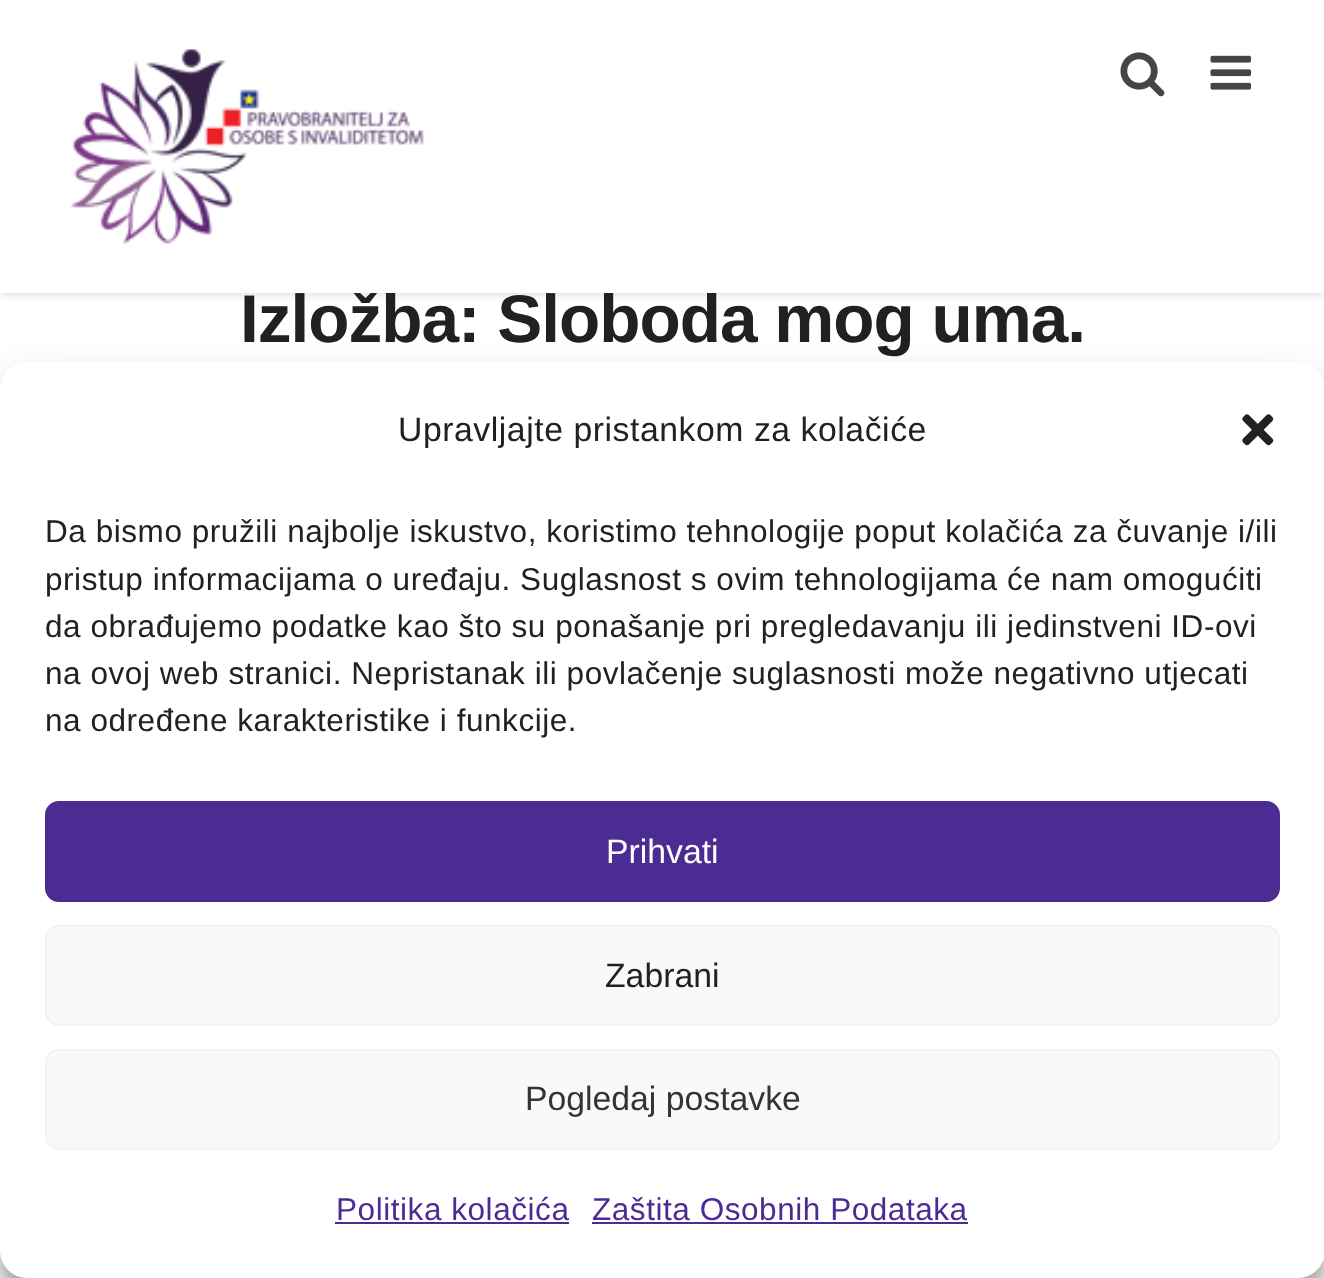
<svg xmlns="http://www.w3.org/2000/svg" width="1324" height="1278">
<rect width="100%" height="100%" fill="#fff"/>
<rect y="2" width="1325" height="293" fill="#0000001f" filter="blur(3.5px)"/>
<text x="240" y="342" style="font-family:Liberation Sans;font-size:67.5px;font-weight:bold;letter-spacing:-1px;fill:#212121">Izložba: Sloboda mog uma.</text>
<rect width="1324" height="293" fill="#fff"/>
<image x="69" y="49" width="355" height="195" href="media/1.png"/>
<image x="1120" y="52" width="45" height="45" href="media/2.png"/>
<image x="1210" y="55" width="41" height="35" href="media/3.png"/>
<rect y="376" width="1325" height="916" rx="27" fill="#0000003b" filter="blur(7px)"/>
<rect y="385" width="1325" height="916" rx="27" fill="#00000030" filter="blur(22.5px)"/>
<rect y="362" width="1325" height="916" rx="27" fill="#fff"/>
<text x="398" y="441" style="font-family:Liberation Sans;font-size:33.75px;letter-spacing:0.55px;fill:#212121">Upravljajte pristankom za kolačiće</text>
<image x="1242" y="414" width="32" height="32" href="media/4.png"/>
<text x="45" y="542" style="font-family:Liberation Sans;font-size:31.5px;letter-spacing:0.55px;fill:#212121">Da bismo pružili najbolje iskustvo, koristimo tehnologije poput kolačića za čuvanje i/ili</text>
<text x="45" y="590" style="font-family:Liberation Sans;font-size:31.5px;letter-spacing:0.55px;fill:#212121">pristup informacijama o uređaju. Suglasnost s ovim tehnologijama će nam omogućiti</text>
<text x="45" y="637" style="font-family:Liberation Sans;font-size:31.5px;letter-spacing:0.55px;fill:#212121">da obrađujemo podatke kao što su ponašanje pri pregledavanju ili jedinstveni ID-ovi</text>
<text x="45" y="684" style="font-family:Liberation Sans;font-size:31.5px;letter-spacing:0.55px;fill:#212121">na ovoj web stranici. Nepristanak ili povlačenje suglasnosti može negativno utjecati</text>
<text x="45" y="731" style="font-family:Liberation Sans;font-size:31.5px;letter-spacing:0.55px;fill:#212121">na određene karakteristike i funkcije.</text>
<rect x="46" y="802" width="1233" height="99" rx="13" fill="#4c2c92" stroke="#4c2c92" stroke-width="2"/>
<text x="606" y="863" style="font-family:Liberation Sans;font-size:33.75px;fill:#fff">Prihvati</text>
<rect x="46" y="926" width="1233" height="99" rx="13" fill="#f9f9f9" stroke="#f2f2f2" stroke-width="2"/>
<text x="605" y="987" style="font-family:Liberation Sans;font-size:33.75px;fill:#212121">Zabrani</text>
<rect x="46" y="1050" width="1233" height="99" rx="13" fill="#f9f9f9" stroke="#f2f2f2" stroke-width="2"/>
<text x="525" y="1110" style="font-family:Liberation Sans;font-size:33.75px;fill:#333">Pogledaj postavke</text>
<text x="336" y="1220" style="font-family:Liberation Sans;font-size:31.5px;letter-spacing:0.55px;fill:#4c2c92">Politika kolačića</text>
<rect x="335" y="1222" width="234" height="2" fill="#4c2c92"/>
<text x="592" y="1220" style="font-family:Liberation Sans;font-size:31.5px;letter-spacing:0.55px;fill:#4c2c92">Zaštita Osobnih Podataka</text>
<rect x="592" y="1222" width="376" height="2" fill="#4c2c92"/>
</svg>
